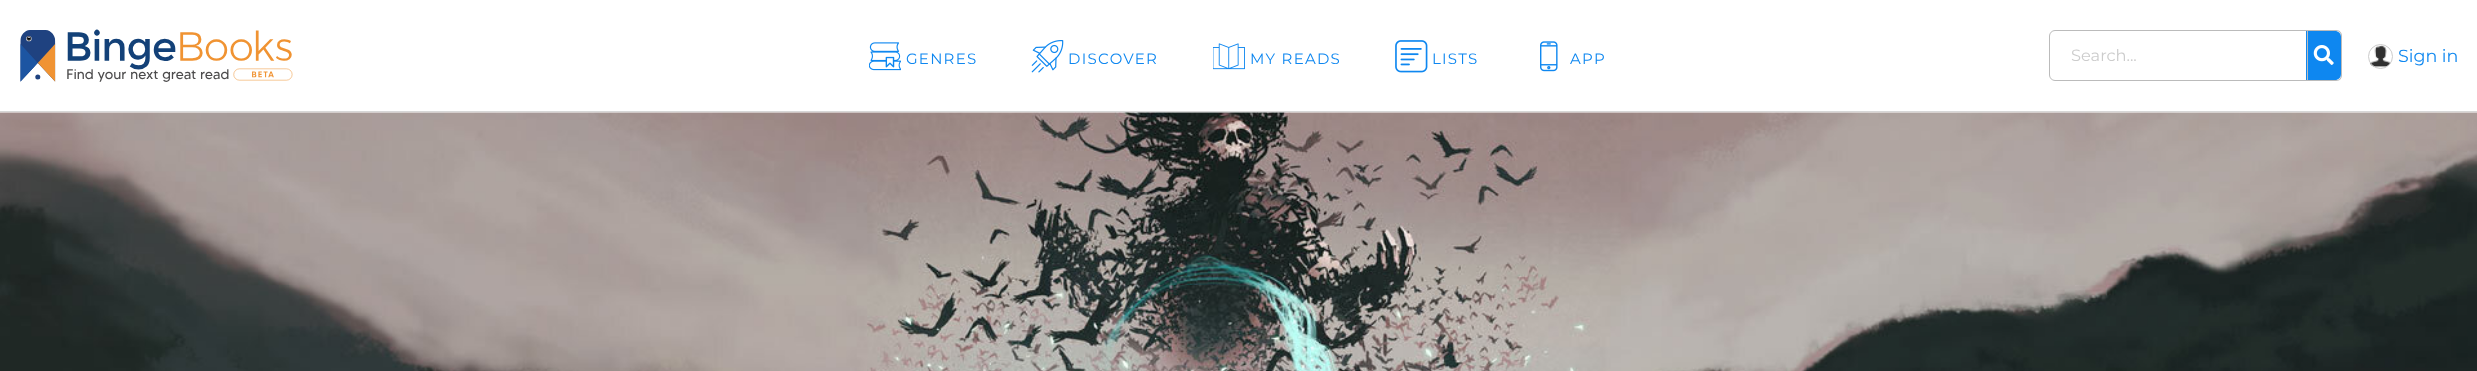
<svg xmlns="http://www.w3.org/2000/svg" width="2477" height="371">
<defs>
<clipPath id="clip1"><path d="M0 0h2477v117h-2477zm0 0h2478v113h-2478z" clip-rule="evenodd"/></clipPath>
</defs>
<rect width="100%" height="100%" fill="#fff"/>
<g clip-path="url(#clip1)">
<rect y="1" width="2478" height="113" fill="#d7d7d770" filter="blur(0.5px)"/>
</g>
<rect y="111" width="2477" height="1" fill="#d7d7d7"/>
<image x="20" y="29" width="273" height="53" href="media/1.png"/>
<image x="869" y="42" width="32" height="29" href="media/2.png"/>
<text x="906" y="64" style="font-family:Montserrat;font-size:15px;font-weight:100;letter-spacing:1.25px;fill:#0e87f0">GENRES</text>
<image x="1031" y="40" width="33" height="33" href="media/3.png"/>
<text x="1068" y="64" style="font-family:Montserrat;font-size:15px;font-weight:100;letter-spacing:1.25px;fill:#0e87f0">DISCOVER</text>
<image x="1213" y="43" width="32" height="27" href="media/4.png"/>
<text x="1250" y="64" style="font-family:Montserrat;font-size:15px;font-weight:100;letter-spacing:1.25px;fill:#0e87f0">MY READS</text>
<image x="1395" y="40" width="33" height="33" href="media/5.png"/>
<text x="1432" y="64" style="font-family:Montserrat;font-size:15px;font-weight:100;letter-spacing:1.25px;fill:#0e87f0">LISTS</text>
<image x="1540" y="41" width="18" height="31" href="media/6.png"/>
<text x="1570" y="64" style="font-family:Montserrat;font-size:15px;font-weight:100;letter-spacing:1.25px;fill:#0e87f0">APP</text>
<path d="M2306 30h30c4 0 6 3 6 6v39c0 3-2 6-6 6h-30zm0 1h30c3 0 5 2 5 5v39c0 3-2 5-5 5h-30z" fill="#bbb" fill-rule="evenodd"/>
<path d="M2306 31h29c3.5 0 6 2.5 6 6v37c0 3.5-2.5 6-6 6h-29z" fill="#0e87f0"/>
<path d="M2055 30.5h252.5v50h-252.5c-3 0-5.5-2.5-5.5-5.5v-39c0-3 2.5-5.5 5.5-5.5z" fill="none" stroke="#bbb"/>
<text x="2071" y="61" style="font-family:Montserrat;font-size:16.25px;font-weight:100;fill:#ccc">Search...</text>
<image x="2313" y="45" width="21" height="20" href="media/7.png"/>
<image x="2369" y="45" width="22" height="23" href="media/8.png"/>
<circle cx="2380.5" cy="56.5" r="12" fill="none" stroke="#ccc"/>
<text x="2398" y="62" style="font-family:Montserrat;font-size:17.5px;font-weight:100;fill:#0e87f0">Sign in</text>
<image x="0" y="112" width="2477" height="259" href="media/9.png"/>
</svg>
